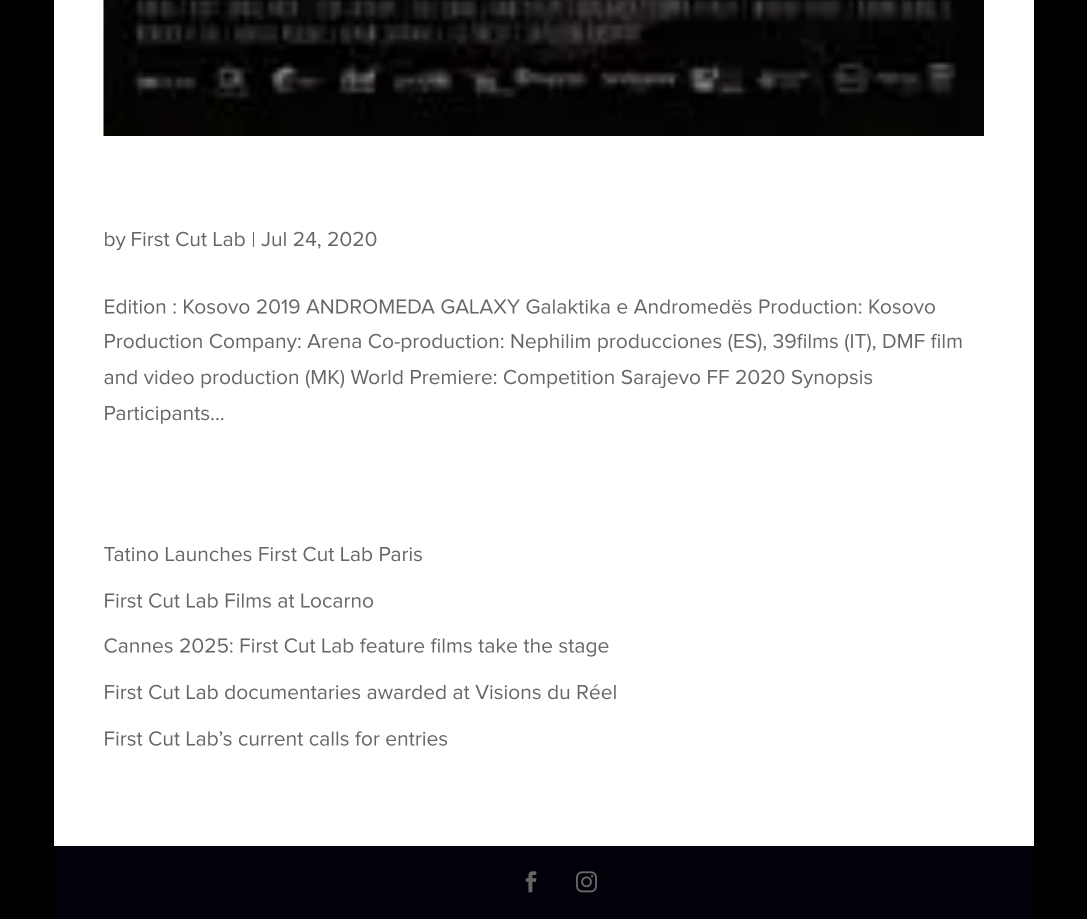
<svg xmlns="http://www.w3.org/2000/svg" width="1087" height="919">
<rect width="100%" height="100%" fill="#000"/>
<rect x="54" width="980" height="846" fill="#fff"/>
<image x="103" y="0" width="881" height="136" href="media/1.png"/>
<image x="105" y="232" width="21" height="19" href="media/2.png"/>
<image x="132" y="231" width="113" height="16" href="media/3.png"/>
<rect x="253" y="232" width="1" height="15" fill="#666"/>
<image x="261" y="231" width="116" height="18" href="media/4.png"/>
<image x="105" y="299" width="830" height="15" href="media/5.png"/>
<image x="105" y="333" width="857" height="20" href="media/6.png"/>
<image x="104" y="369" width="769" height="20" href="media/7.png"/>
<image x="105" y="406" width="119" height="18" href="media/8.png"/>
<image x="104" y="546" width="318" height="16" href="media/9.png"/>
<image x="105" y="593" width="268" height="15" href="media/10.png"/>
<image x="104" y="638" width="505" height="19" href="media/11.png"/>
<image x="105" y="684" width="511" height="16" href="media/12.png"/>
<image x="105" y="731" width="343" height="15" href="media/13.png"/>
<rect x="54" y="846" width="980" height="73" fill="#03000a"/>
<image x="525" y="871" width="12" height="22" href="media/14.png"/>
<image x="576" y="871" width="21" height="22" href="media/15.png"/>
</svg>
